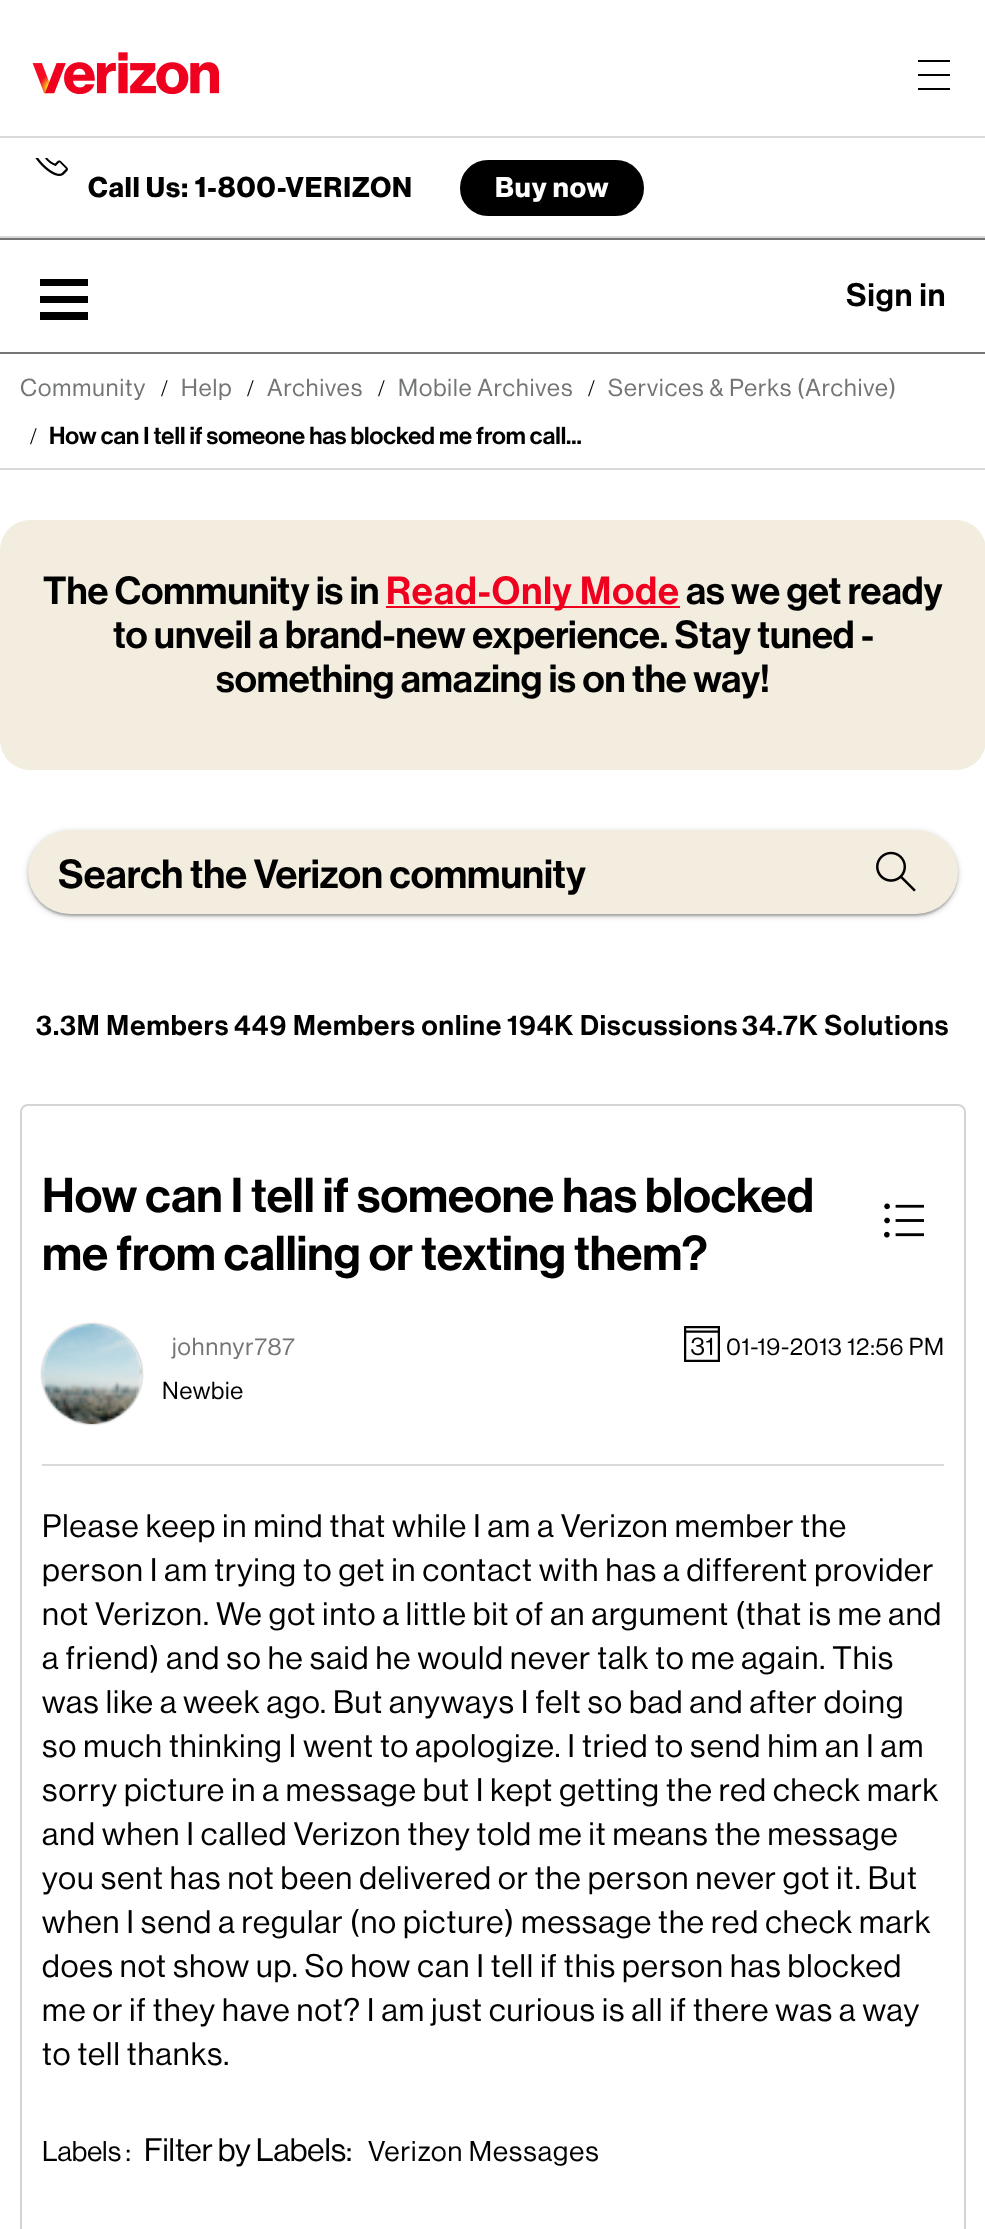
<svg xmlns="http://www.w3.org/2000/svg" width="985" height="2229">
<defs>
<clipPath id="clip1"><path d="M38 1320h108v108h-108zm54 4c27.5 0 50 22.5 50 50c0 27.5-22.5 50-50 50c-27.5 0-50-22.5-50-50c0-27.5 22.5-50 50-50z" clip-rule="evenodd"/></clipPath>
</defs>
<rect width="100%" height="100%" fill="#fff"/>
<rect y="236" width="985" height="2" fill="#d8dada"/>
<image x="32" y="52" width="188" height="42" href="media/1.png"/>
<rect x="918" y="60" width="32" height="2" fill="#000"/>
<rect x="918" y="88" width="32" height="2" fill="#000"/>
<rect x="918" y="74" width="32" height="2" fill="#000"/>
<rect y="136" width="985" height="2" fill="#d8dada"/>
<image x="35" y="158" width="33" height="18" href="media/2.png"/>
<text x="88" y="197" style="font-family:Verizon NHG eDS;font-size:28px;font-weight:bold;letter-spacing:1px;fill:#000">Call Us: 1-800-VERIZON</text>
<rect x="461" y="161" width="182" height="54" rx="27" fill="#000" stroke="#000" stroke-width="2"/>
<text x="495" y="197" style="font-family:Verizon NHG eDS;font-size:28px;font-weight:bold;letter-spacing:1px;fill:#fff">Buy now</text>
<rect y="238" width="985" height="2" fill="#747676"/>
<path d="M40 279h48v7h-48zm0 17h48v7h-48zm0 16h48v8h-48z" fill="#000" fill-rule="evenodd"/>
<text x="846" y="306" style="font-family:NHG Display;font-size:32px;font-weight:500;letter-spacing:1px;fill:#000">Sign in</text>
<rect y="468" width="985" height="2" fill="#d8dada"/>
<rect y="352" width="985" height="2" fill="#747676"/>
<text x="20" y="396" style="font-family:NHG Display;font-size:24px;letter-spacing:1px;fill:#747676">Community</text>
<text x="161" y="396" style="font-family:Liberation Serif;font-size:24px;fill:#000">/</text>
<text x="181" y="396" style="font-family:NHG Display;font-size:24px;letter-spacing:1px;fill:#747676">Help</text>
<text x="247" y="396" style="font-family:Liberation Serif;font-size:24px;fill:#000">/</text>
<text x="267" y="396" style="font-family:NHG Display;font-size:24px;letter-spacing:1px;fill:#747676">Archives</text>
<text x="378" y="396" style="font-family:Liberation Serif;font-size:24px;fill:#000">/</text>
<text x="398" y="396" style="font-family:NHG Display;font-size:24px;letter-spacing:1px;fill:#747676">Mobile Archives</text>
<text x="588" y="396" style="font-family:Liberation Serif;font-size:24px;fill:#000">/</text>
<text x="608" y="396" style="font-family:NHG Display;font-size:24px;letter-spacing:1px;fill:#747676">Services &amp; Perks (Archive)</text>
<text x="30" y="444" style="font-family:Liberation Serif;font-size:24px;fill:#000">/</text>
<text x="49" y="444" style="font-family:NHG Display;font-size:24px;font-weight:500;fill:#000">How can I tell if someone has blocked me from call...</text>
<rect y="520" width="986" height="250" rx="30" fill="#f3ede0"/>
<text x="43" y="604" style="font-family:NHG Display;font-size:38.4px;font-weight:500;fill:#000">The Community is in</text>
<rect x="386" y="606" width="294" height="2" fill="#ee001e"/>
<text x="386" y="604" style="font-family:NHG Display;font-size:38.4px;font-weight:500;letter-spacing:1px;fill:#ee001e">Read-Only Mode</text>
<text x="686" y="604" style="font-family:NHG Display;font-size:38.4px;font-weight:500;fill:#000">as we get ready</text>
<text x="113" y="648" style="font-family:NHG Display;font-size:38.4px;font-weight:500;fill:#000">to unveil a brand-new experience. Stay tuned -</text>
<text x="216" y="692" style="font-family:NHG Display;font-size:38.4px;font-weight:500;fill:#000">something amazing is on the way!</text>
<rect x="30" y="836" width="926" height="80" rx="40" fill="#0000001f" filter="blur(1px)"/>
<rect x="28" y="832" width="930" height="84" rx="42" fill="#00000024" filter="blur(1px)"/>
<rect x="28" y="832" width="930" height="84" rx="42" fill="#00000033" filter="blur(3px)"/>
<rect x="28" y="830" width="930" height="84" rx="42" fill="#f3ede0"/>
<text x="58" y="888" style="font-family:NHG Display;font-size:40px;font-weight:500;fill:#000">Search the Verizon community</text>
<image x="876" y="851" width="40" height="41" href="media/3.png"/>
<text x="36" y="1035" style="font-family:NHG Display;font-size:28px;font-weight:500;letter-spacing:1px;fill:#000">3.3M Members</text>
<text x="234" y="1035" style="font-family:NHG Display;font-size:28px;font-weight:500;letter-spacing:1px;fill:#000">449 Members online</text>
<text x="507" y="1035" style="font-family:NHG Display;font-size:28px;font-weight:500;letter-spacing:1px;fill:#000">194K Discussions</text>
<text x="742" y="1035" style="font-family:NHG Display;font-size:28px;font-weight:500;letter-spacing:1px;fill:#000">34.7K Solutions</text>
<rect x="21" y="1105" width="944" height="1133" rx="7" fill="none" stroke="#d5d3d3" stroke-width="2"/>
<text x="42" y="1212" style="font-family:NHG Display;font-size:48px;font-weight:500;fill:#000">How can I tell if someone has blocked</text>
<text x="42" y="1270" style="font-family:NHG Display;font-size:48px;font-weight:500;fill:#000">me from calling or texting them?</text>
<image x="884" y="1203" width="40" height="35" href="media/4.png"/>
<rect x="42" y="1464" width="902" height="2" fill="#d8dada"/>
<g clip-path="url(#clip1)">
<rect x="42" y="1324" width="100" height="100" rx="50" fill="#999" filter="blur(1px)"/>
</g>
<image x="42" y="1324" width="100" height="100" href="media/5.png"/>
<text x="172" y="1355" style="font-family:NHG Display;font-size:24px;letter-spacing:1px;fill:#747676">johnnyr787</text>
<text x="162" y="1399" style="font-family:NHG Display;font-size:24px;letter-spacing:0.75px;fill:#000">Newbie</text>
<image x="684" y="1326" width="36" height="36" href="media/6.png"/>
<text x="726" y="1355" style="font-family:NHG Display;font-size:24px;letter-spacing:0.75px;fill:#000">01-19-2013</text>
<text x="847" y="1355" style="font-family:NHG Display;font-size:24px;letter-spacing:0.75px;fill:#000">12:56 PM</text>
<text x="42" y="1537" style="font-family:NHG Display;font-size:32px;letter-spacing:1px;fill:#000">Please keep in mind that while I am a Verizon member the</text>
<text x="42" y="1581" style="font-family:NHG Display;font-size:32px;letter-spacing:1px;fill:#000">person I am trying to get in contact with has a different provider</text>
<text x="42" y="1625" style="font-family:NHG Display;font-size:32px;letter-spacing:1px;fill:#000">not Verizon. We got into a little bit of an argument (that is me and</text>
<text x="42" y="1669" style="font-family:NHG Display;font-size:32px;letter-spacing:1px;fill:#000">a friend) and so he said he would never talk to me again. This</text>
<text x="42" y="1713" style="font-family:NHG Display;font-size:32px;letter-spacing:1px;fill:#000">was like a week ago. But anyways I felt so bad and after doing</text>
<text x="42" y="1757" style="font-family:NHG Display;font-size:32px;letter-spacing:1px;fill:#000">so much thinking I went to apologize. I tried to send him an I am</text>
<text x="42" y="1801" style="font-family:NHG Display;font-size:32px;letter-spacing:1px;fill:#000">sorry picture in a message but I kept getting the red check mark</text>
<text x="42" y="1845" style="font-family:NHG Display;font-size:32px;letter-spacing:1px;fill:#000">and when I called Verizon they told me it means the message</text>
<text x="42" y="1889" style="font-family:NHG Display;font-size:32px;letter-spacing:1px;fill:#000">you sent has not been delivered or the person never got it. But</text>
<text x="42" y="1933" style="font-family:NHG Display;font-size:32px;letter-spacing:1px;fill:#000">when I send a regular (no picture) message the red check mark</text>
<text x="42" y="1977" style="font-family:NHG Display;font-size:32px;letter-spacing:1px;fill:#000">does not show up. So how can I tell if this person has blocked</text>
<text x="42" y="2021" style="font-family:NHG Display;font-size:32px;letter-spacing:1px;fill:#000">me or if they have not? I am just curious is all if there was a way</text>
<text x="42" y="2065" style="font-family:NHG Display;font-size:32px;letter-spacing:1px;fill:#000">to tell thanks.</text>
<text x="42" y="2161" style="font-family:NHG Display;font-size:28px;fill:#000">Labels :</text>
<text x="144" y="2161" style="font-family:NHG Display;font-size:32px;fill:#000">Filter by Labels:</text>
<text x="368" y="2161" style="font-family:NHG Display;font-size:28px;letter-spacing:1px;fill:#000">Verizon Messages</text>
</svg>
